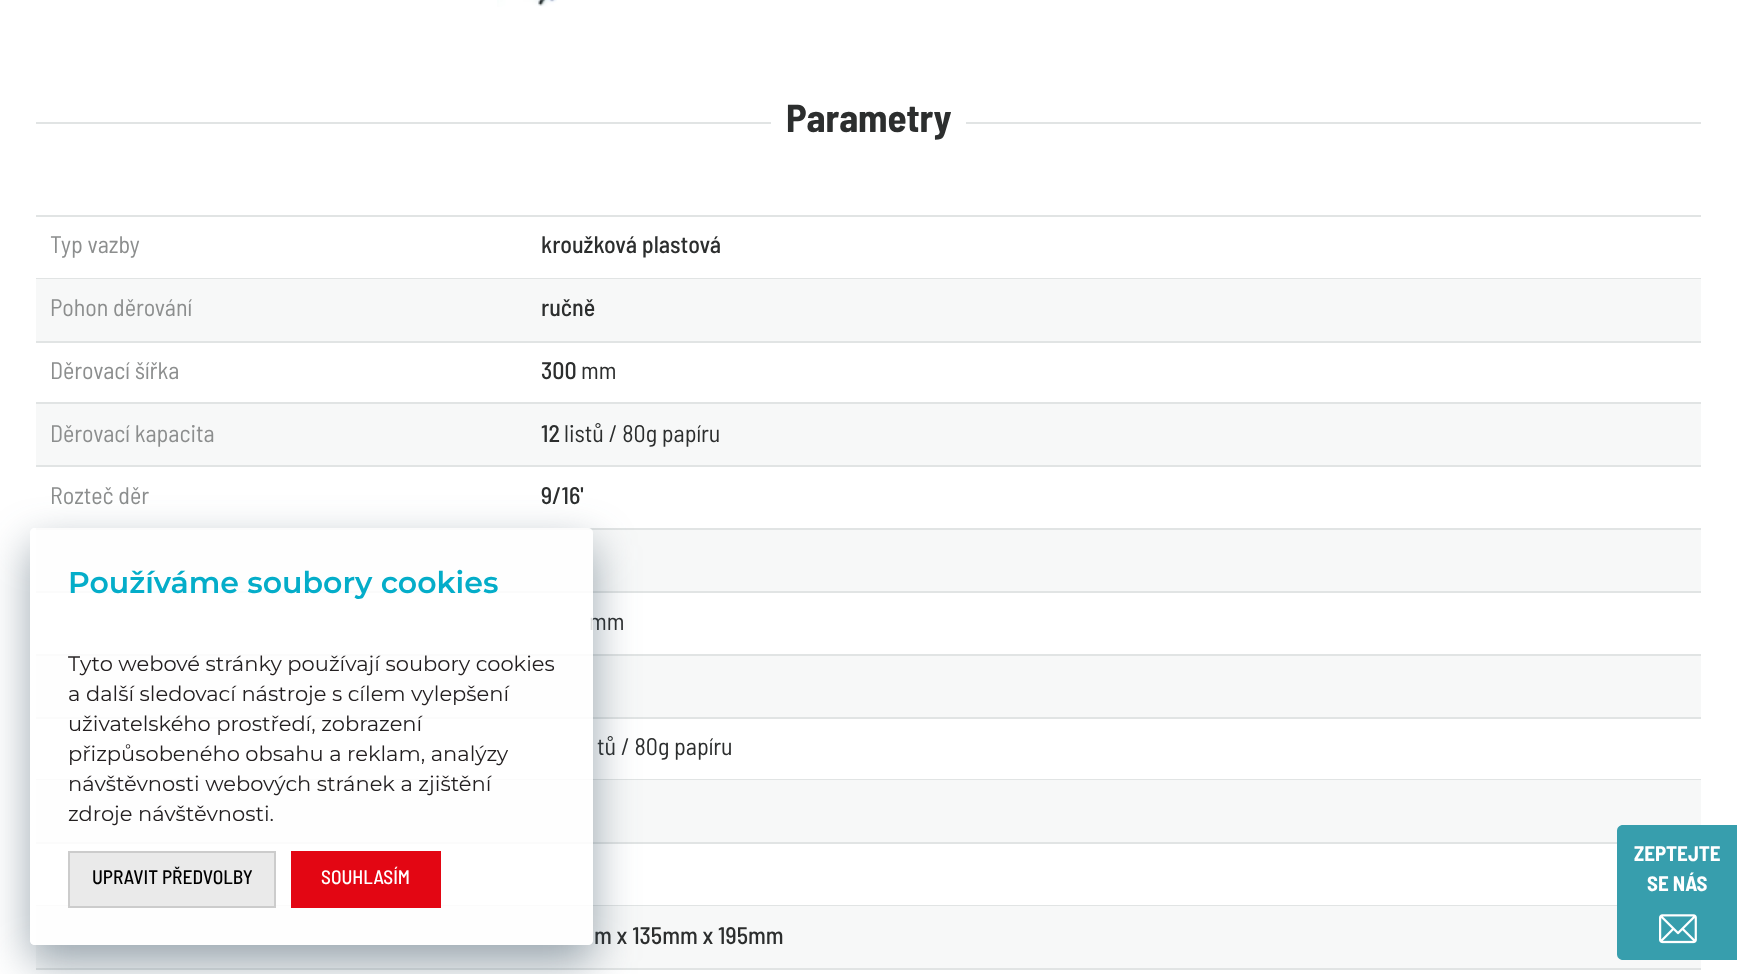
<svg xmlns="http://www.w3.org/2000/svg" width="1737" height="974">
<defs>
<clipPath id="clip1"><path d="M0 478h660v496h-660zm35 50h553c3 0 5 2 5 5v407c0 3-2 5-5 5h-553c-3 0-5-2-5-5v-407c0-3 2-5 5-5z" clip-rule="evenodd"/></clipPath>
</defs>
<rect width="100%" height="100%" fill="#fff"/>
<image x="497" y="0" width="60" height="7" href="media/1.png"/>
<rect x="36" y="122" width="735" height="2" fill="#e1e4e4"/>
<text x="786" y="132" style="font-family:Barlow Semi Condensed;font-size:39px;font-weight:bold;fill:#2c2e2e">Parametry</text>
<rect x="966" y="122" width="735" height="2" fill="#e1e4e4"/>
<rect x="36" y="215" width="1665" height="2" fill="#e1e4e4"/>
<rect x="36" y="278" width="1665" height="1" fill="#e1e4e4"/>
<text x="50" y="253" style="font-family:Barlow Semi Condensed;font-size:24px;fill:#8c8e8e">Typ vazby</text>
<text x="541" y="253" style="font-family:Barlow Semi Condensed;font-size:24px;font-weight:500;fill:#2c2e2e">kroužková plastová</text>
<rect x="36" y="279" width="1665" height="62" fill="#f7f8f8"/>
<rect x="36" y="341" width="1665" height="2" fill="#e1e4e4"/>
<text x="50" y="316" style="font-family:Barlow Semi Condensed;font-size:24px;fill:#8c8e8e">Pohon děrování</text>
<text x="541" y="316" style="font-family:Barlow Semi Condensed;font-size:24px;font-weight:500;fill:#2c2e2e">ručně</text>
<rect x="36" y="402" width="1665" height="2" fill="#e1e4e4"/>
<text x="50" y="379" style="font-family:Barlow Semi Condensed;font-size:24px;fill:#8c8e8e">Děrovací šířka</text>
<text x="541" y="379" style="font-family:Barlow Semi Condensed;font-size:24px;font-weight:500;fill:#2c2e2e">300</text>
<text x="581" y="379" style="font-family:Barlow Semi Condensed;font-size:24px;fill:#2c2e2e">mm</text>
<rect x="36" y="404" width="1665" height="61" fill="#f7f8f8"/>
<rect x="36" y="465" width="1665" height="2" fill="#e1e4e4"/>
<text x="50" y="442" style="font-family:Barlow Semi Condensed;font-size:24px;fill:#8c8e8e">Děrovací kapacita</text>
<text x="541" y="442" style="font-family:Barlow Semi Condensed;font-size:24px;font-weight:500;fill:#2c2e2e">12</text>
<text x="564" y="442" style="font-family:Barlow Semi Condensed;font-size:24px;fill:#2c2e2e">listů / 80g papíru</text>
<rect x="36" y="528" width="1665" height="2" fill="#e1e4e4"/>
<text x="50" y="504" style="font-family:Barlow Semi Condensed;font-size:24px;fill:#8c8e8e">Rozteč děr</text>
<text x="541" y="504" style="font-family:Barlow Semi Condensed;font-size:24px;font-weight:500;fill:#2c2e2e">9/16'</text>
<rect x="36" y="530" width="1665" height="61" fill="#f7f8f8"/>
<rect x="36" y="591" width="1665" height="2" fill="#e1e4e4"/>
<rect x="36" y="654" width="1665" height="2" fill="#e1e4e4"/>
<text x="589" y="630" style="font-family:Barlow Semi Condensed;font-size:24px;fill:#2c2e2e">mm</text>
<rect x="36" y="656" width="1665" height="61" fill="#f7f8f8"/>
<rect x="36" y="717" width="1665" height="2" fill="#e1e4e4"/>
<rect x="36" y="779" width="1665" height="1" fill="#e1e4e4"/>
<text x="597" y="755" style="font-family:Barlow Semi Condensed;font-size:24px;fill:#2c2e2e">tů / 80g papíru</text>
<rect x="36" y="780" width="1665" height="62" fill="#f7f8f8"/>
<rect x="36" y="842" width="1581" height="2" fill="#e1e4e4"/>
<rect x="36" y="905" width="1581" height="1" fill="#e1e4e4"/>
<rect x="36" y="906" width="1665" height="62" fill="#f7f8f8"/>
<rect x="36" y="968" width="1665" height="2" fill="#e1e4e4"/>
<text x="594" y="944" style="font-family:Barlow Semi Condensed;font-size:24px;font-weight:500;fill:#2c2e2e">m x 135mm x 195mm</text>
<g clip-path="url(#clip1)">
<rect x="30" y="545" width="563" height="417" rx="5" fill="#38506180" filter="blur(22px)"/>
</g>
<rect x="30" y="528" width="563" height="417" rx="5" fill="#ffffffd9"/>
<text x="68" y="593" style="font-family:Montserrat;font-size:30px;font-weight:600;fill:#04adc9">Používáme soubory cookies</text>
<text x="68" y="671" style="font-family:Montserrat;font-size:21px;fill:#231f20">Tyto webové stránky používají soubory cookies</text>
<text x="68" y="701" style="font-family:Montserrat;font-size:21px;fill:#231f20">a další sledovací nástroje s cílem vylepšení</text>
<text x="68" y="731" style="font-family:Montserrat;font-size:21px;fill:#231f20">uživatelského prostředí, zobrazení</text>
<text x="68" y="761" style="font-family:Montserrat;font-size:21px;fill:#231f20">přizpůsobeného obsahu a reklam, analýzy</text>
<text x="68" y="791" style="font-family:Montserrat;font-size:21px;fill:#231f20">návštěvnosti webových stránek a zjištění</text>
<text x="68" y="821" style="font-family:Montserrat;font-size:21px;fill:#231f20">zdroje návštěvnosti.</text>
<rect x="69" y="852" width="206" height="55" fill="#eaeaea" stroke="#ccc" stroke-width="2"/>
<text x="92" y="884" style="font-family:Barlow Semi Condensed;font-size:19.5px;font-weight:500;fill:#000">UPRAVIT PŘEDVOLBY</text>
<rect x="291" y="851" width="150" height="57" fill="#e30613"/>
<text x="321" y="884" style="font-family:Barlow Semi Condensed;font-size:19.5px;font-weight:500;fill:#fff">SOUHLASÍM</text>
<path d="M1623 825h114v135h-114c-3.5 0-6-2.5-6-6v-123c0-3.5 2.5-6 6-6z" fill="#379ead"/>
<text x="1634" y="861" style="font-family:Barlow Semi Condensed;font-size:21px;font-weight:bold;fill:#fff">ZEPTEJTE</text>
<text x="1647" y="891" style="font-family:Barlow Semi Condensed;font-size:21px;font-weight:bold;fill:#fff">SE NÁS</text>
<image x="1659" y="914" width="38" height="30" href="media/2.png"/>
</svg>
